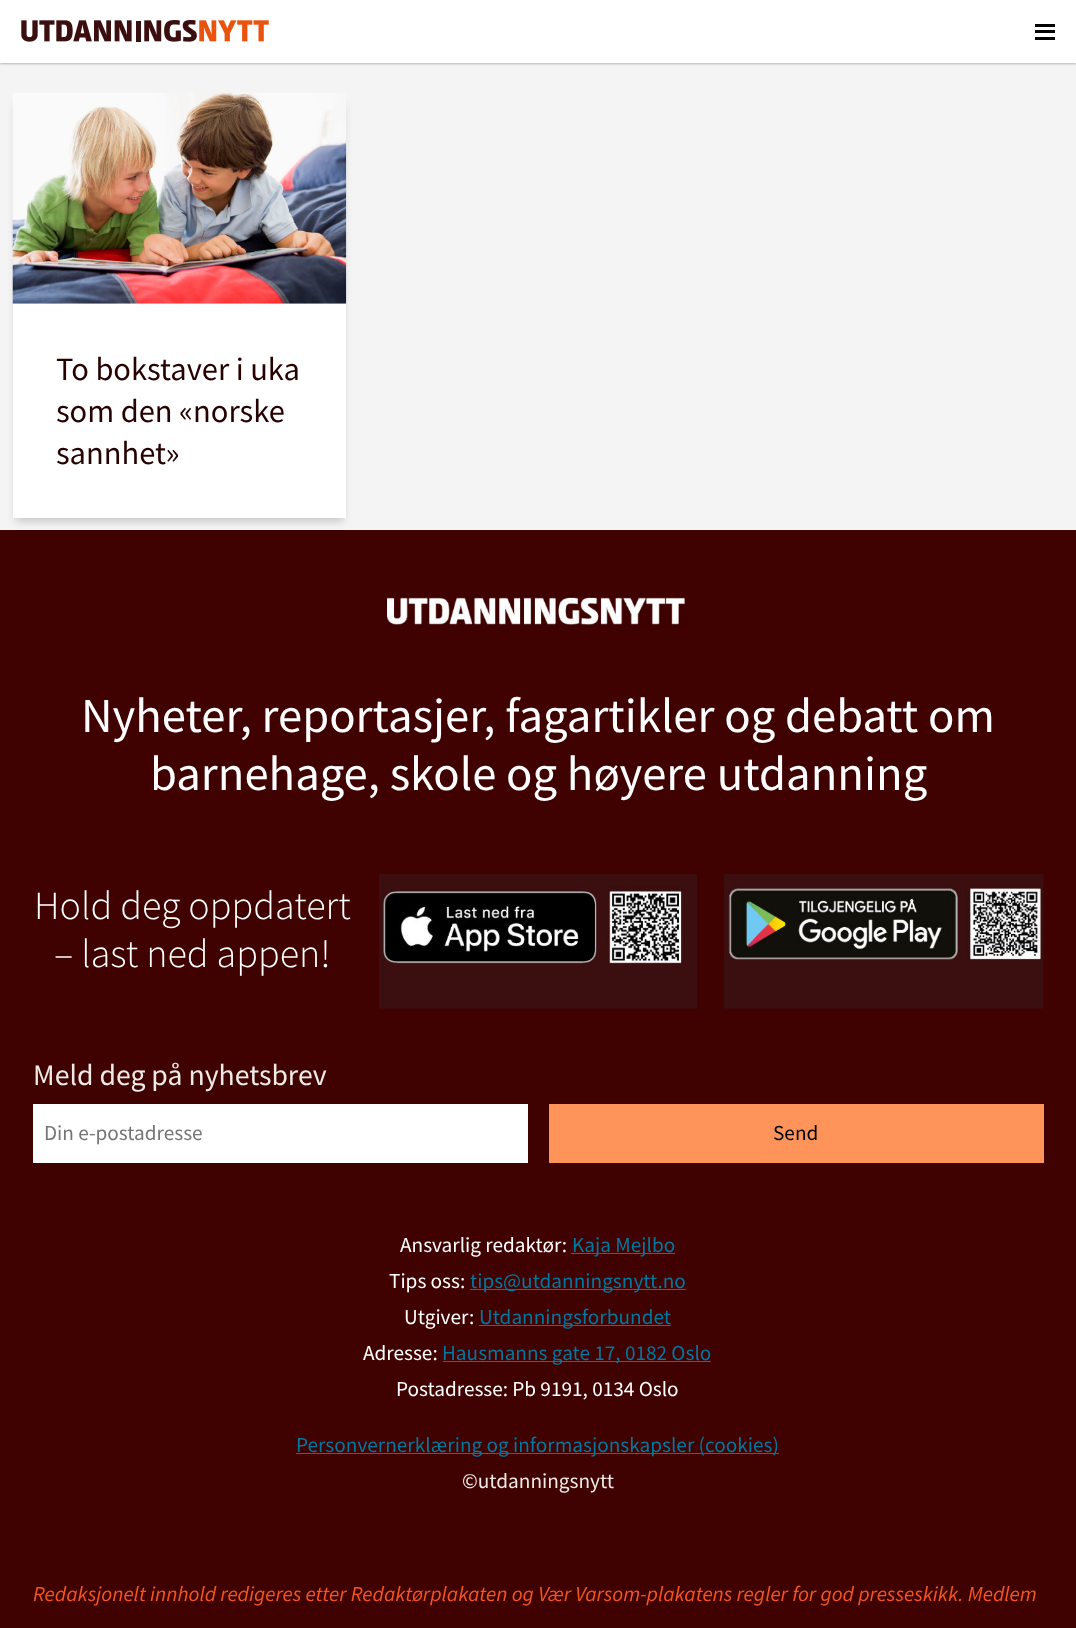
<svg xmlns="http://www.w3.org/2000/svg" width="1076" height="1628">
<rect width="100%" height="100%" fill="#f4f4f4"/>
<rect y="1" width="1076" height="63" fill="#00000040" filter="blur(1px)"/>
<rect width="1076" height="63" fill="#fff"/>
<image x="21" y="20" width="248" height="22" href="media/1.png"/>
<rect x="1035" y="24" width="20" height="3" fill="#000"/>
<rect x="1035" y="30" width="20" height="3" fill="#000"/>
<rect x="1035" y="37" width="20" height="3" fill="#000"/>
<rect x="16" y="104" width="327" height="417" fill="#00000033" filter="blur(4px)"/>
<rect x="13" y="303" width="333" height="215" fill="#fff"/>
<image x="12" y="92" width="335" height="212" href="media/2.png"/>
<text x="56" y="380" style="font-family:Source Sans Pro;font-size:32.5px;fill:#260101">To bokstaver i uka</text>
<text x="56" y="422" style="font-family:Source Sans Pro;font-size:32.5px;fill:#260101">som den «norske</text>
<text x="56" y="464" style="font-family:Source Sans Pro;font-size:32.5px;fill:#260101">sannhet»</text>
<rect y="530" width="1076" height="1098" fill="#400101"/>
<image x="385" y="595" width="303" height="32" href="media/3.png"/>
<text x="81" y="732" style="font-family:Source Sans Pro;font-size:48.75px;fill:#fff">Nyheter, reportasjer, fagartikler og debatt om</text>
<text x="150" y="790" style="font-family:Source Sans Pro;font-size:48.75px;fill:#fff">barnehage, skole og høyere utdanning</text>
<text x="34" y="919" style="font-family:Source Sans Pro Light;font-size:40px;font-weight:300;fill:#fff">Hold deg oppdatert</text>
<text x="54" y="967" style="font-family:Source Sans Pro Light;font-size:40px;font-weight:300;fill:#fff">– last ned appen!</text>
<image x="379" y="874" width="318" height="135" href="media/4.png"/>
<image x="724" y="874" width="320" height="135" href="media/5.png"/>
<text x="33" y="1085" style="font-family:Source Sans Pro;font-size:29.75px;fill:#eeebe7">Meld deg på nyhetsbrev</text>
<rect x="33" y="1104" width="495" height="59" fill="#fff"/>
<text x="44" y="1140" style="font-family:Source Sans Pro;font-size:21.25px;fill:#757575">Din e-postadresse</text>
<rect x="549" y="1104" width="495" height="59" fill="#fe945a"/>
<text x="773" y="1140" style="font-family:Source Sans Pro;font-size:21.25px;fill:#000">Send</text>
<text x="400" y="1252" style="font-family:Source Sans Pro;font-size:21.25px;fill:#fff">Ansvarlig redaktør:</text>
<rect x="571" y="1253" width="104" height="1" fill="#0078a0"/>
<text x="572" y="1252" style="font-family:Source Sans Pro;font-size:21.25px;fill:#0078a0">Kaja Mejlbo</text>
<text x="389" y="1288" style="font-family:Source Sans Pro;font-size:21.25px;fill:#fff">Tips oss:</text>
<rect x="470" y="1289" width="216" height="1" fill="#0078a0"/>
<text x="470" y="1288" style="font-family:Source Sans Pro;font-size:21.25px;fill:#0078a0">tips@utdanningsnytt.no</text>
<text x="404" y="1324" style="font-family:Source Sans Pro;font-size:21.25px;fill:#fff">Utgiver:</text>
<rect x="479" y="1325" width="192" height="1" fill="#0078a0"/>
<text x="479" y="1324" style="font-family:Source Sans Pro;font-size:21.25px;fill:#0078a0">Utdanningsforbundet</text>
<text x="363" y="1360" style="font-family:Source Sans Pro;font-size:21.25px;fill:#fff">Adresse:</text>
<rect x="443" y="1361" width="268" height="1" fill="#0078a0"/>
<text x="442" y="1360" style="font-family:Source Sans Pro;font-size:21.25px;fill:#0078a0">Hausmanns gate 17, 0182 Oslo</text>
<text x="396" y="1396" style="font-family:Source Sans Pro;font-size:21.25px;fill:#fff">Postadresse: Pb 9191, 0134 Oslo</text>
<rect x="296" y="1453" width="483" height="1" fill="#0078a0"/>
<text x="296" y="1452" style="font-family:Source Sans Pro;font-size:21.25px;fill:#0078a0">Personvernerklæring og informasjonskapsler (cookies)</text>
<text x="462" y="1488" style="font-family:Source Sans Pro;font-size:21.25px;fill:#eeebe7">©utdanningsnytt</text>
<text x="33" y="1601" style="font-family:Source Sans Pro;font-size:21.25px;font-style:italic;fill:#f15623">Redaksjonelt innhold redigeres etter Redaktørplakaten og Vær Varsom-plakatens regler for god presseskikk. Medlem</text>
</svg>
